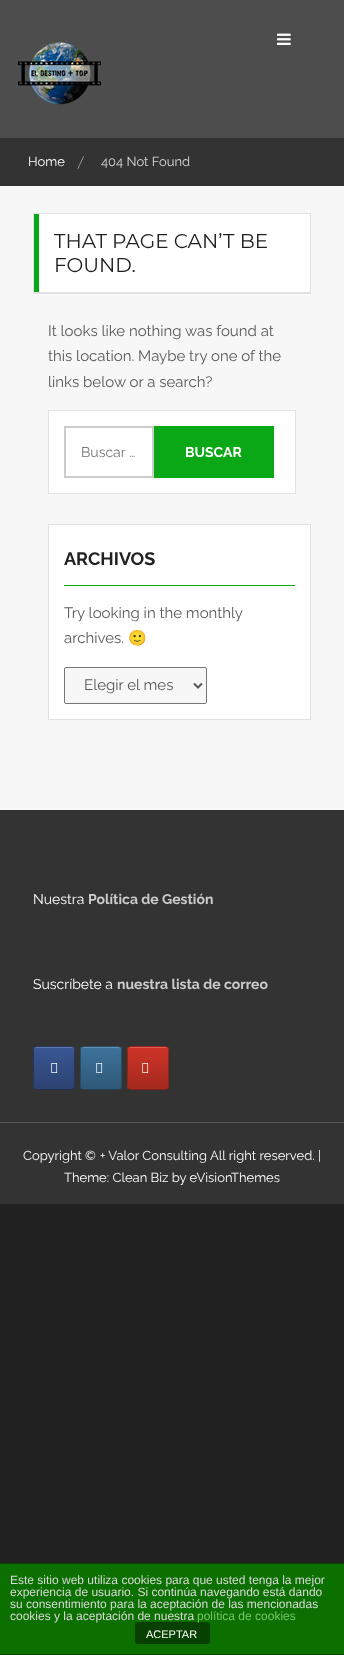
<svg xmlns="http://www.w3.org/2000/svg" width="344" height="1655">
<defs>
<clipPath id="clip1"><rect x="33" y="1046" width="42" height="44" rx="4"/></clipPath>
<linearGradient id="g1" gradientUnits="userSpaceOnUse" x1="34" y1="1089" x2="34" y2="1047"><stop offset="0" stop-color="#2c4270"/><stop offset="1" stop-color="#3a5795"/></linearGradient>
<clipPath id="clip2"><rect x="80" y="1046" width="42" height="44" rx="4"/></clipPath>
<linearGradient id="g2" gradientUnits="userSpaceOnUse" x1="81" y1="1089" x2="81" y2="1047"><stop offset="0" stop-color="#2f5877"/><stop offset="1" stop-color="#3d739c"/></linearGradient>
<clipPath id="clip3"><rect x="127" y="1046" width="42" height="44" rx="4"/></clipPath>
<linearGradient id="g3" gradientUnits="userSpaceOnUse" x1="128" y1="1089" x2="128" y2="1047"><stop offset="0" stop-color="#a4291f"/><stop offset="1" stop-color="#cf3427"/></linearGradient>
</defs>
<rect width="100%" height="100%" fill="#212121"/>
<rect y="186" width="344" height="624" fill="#f7f7f7"/>
<rect width="344" height="138" fill="#4d4d4d"/>
<image x="277" y="33" width="14" height="12" href="media/1.png"/>
<image x="18" y="42" width="83" height="63" href="media/2.png"/>
<rect y="138" width="344" height="48" fill="#333"/>
<text x="28" y="166" style="font-family:Raleway;font-size:13px;fill:#fff">Home</text>
<path d="M83.5 156l.5 .5l-6 12.5l-.5-.5z" fill="#bababa"/>
<text x="101" y="166" style="font-family:Raleway;font-size:13px;fill:#d9d9d9">404 Not Found</text>
<rect x="39" y="214" width="271" height="78" fill="#fff"/>
<rect x="33" y="213" width="278" height="1" fill="#e1e1e1"/>
<rect x="310" y="213" width="1" height="81" fill="#e1e1e1"/>
<rect x="33" y="292" width="278" height="2" fill="#e1e1e1"/>
<rect x="33" y="213" width="1" height="81" fill="#e1e1e1"/>
<rect x="34" y="214" width="5" height="78" fill="#0aa817"/>
<text x="54" y="248" style="font-family:Montserrat;font-size:20px;fill:#212121">THAT PAGE CAN’T BE</text>
<text x="54" y="272" style="font-family:Montserrat;font-size:20px;fill:#212121">FOUND.</text>
<text x="48" y="336" style="font-family:Raleway;font-size:15px;fill:#595959">It looks like nothing was found at</text>
<text x="48" y="361" style="font-family:Raleway;font-size:15px;fill:#595959">this location. Maybe try one of the</text>
<text x="48" y="387" style="font-family:Raleway;font-size:15px;fill:#595959">links below or a search?</text>
<rect x="48.5" y="410.5" width="247" height="83" fill="#fff" stroke="#e1e1e1"/>
<rect x="65" y="427" width="88" height="50" fill="none" stroke="#ccc" stroke-width="2"/>
<text x="81" y="457" style="font-family:Raleway;font-size:14px;fill:#757575">Buscar …</text>
<rect x="154" y="426" width="120" height="52" fill="#0aa817"/>
<text x="185" y="457" style="font-family:Raleway;font-size:14px;font-weight:bold;fill:#fff">BUSCAR</text>
<rect x="48.5" y="524.5" width="262" height="195" fill="#fff" stroke="#e1e1e1"/>
<rect x="64" y="585" width="231" height="1" fill="#0aa817"/>
<text x="64" y="565" style="font-family:Raleway;font-size:18px;font-weight:bold;fill:#212121">ARCHIVOS</text>
<text x="64" y="618" style="font-family:Raleway;font-size:15px;fill:#595959">Try looking in the monthly</text>
<text x="64" y="643" style="font-family:Raleway;font-size:15px;fill:#595959">archives.</text>
<text x="128" y="643" style="font-family:Noto Color Emoji;font-size:15px;fill:#595959">🙂</text>
<rect x="64.5" y="667.5" width="142" height="36" rx="1.5" fill="#f7f7f7" stroke="#767676"/>
<path d="M194 683.5l4 4l4-4" fill="none" stroke="#595959" stroke-width="2"/>
<text x="84" y="690" style="font-family:Raleway;font-size:15px;fill:#595959">Elegir el mes</text>
<rect y="810" width="344" height="312" fill="#333"/>
<rect y="1122" width="344" height="1" fill="#565656"/>
<text x="33" y="904" style="font-family:Raleway;font-size:14px;fill:#fff">Nuestra</text>
<text x="88" y="904" style="font-family:Raleway;font-size:14px;font-weight:bold;fill:#ccc">Política de Gestión</text>
<text x="33" y="989" style="font-family:Raleway;font-size:14px;fill:#fff">Suscríbete a</text>
<text x="117" y="989" style="font-family:Raleway;font-size:14px;font-weight:bold;fill:#ccc">nuestra lista de correo</text>
<g clip-path="url(#clip1)">
<rect x="33" y="1047" width="42" height="42" fill="url(#g1)"/>
</g>
<path d="M36 1048h36c1 0 2 1 2 2c0-4-5-3-8-3h-24c-3 0-8-1-8 3c0-1 1-2 2-2z" fill="#6179aa"/>
<path d="M34.5 1047.5c.5-.5 1-1 2-1h35c1 0 1.5 .5 2 1" fill="none" stroke="#273b65"/>
<path d="M73.5 1047.5l1 2v37l-1 2" fill="none" stroke="#25375e"/>
<path d="M73.5 1088.5c-.5 .5-1 1-2 1h-35c-1 0-1.5-.5-2-1" fill="none" stroke="#203053"/>
<path d="M34.5 1088.5l-1-2v-37l1-2" fill="none" stroke="#25375e"/>
<image x="51" y="1063" width="7" height="10" href="media/3.png"/>
<g clip-path="url(#clip2)">
<rect x="80" y="1047" width="42" height="42" fill="url(#g2)"/>
</g>
<path d="M84 1048h34c2 0 3 1 3 2c0-4-5-3-8-3h-24c-3 0-8-1-8 3c0-1 1-2 3-2z" fill="#648fb0"/>
<path d="M81.5 1047.5c.5-.5 1-1 2-1h35c1 0 1.5 .5 2 1" fill="none" stroke="#2a506c"/>
<path d="M120.5 1047.5l1 2v37l-1 2" fill="none" stroke="#274a65"/>
<path d="M120.5 1088.5c-.5 .5-1 1-2 1h-35c-1 0-1.5-.5-2-1" fill="none" stroke="#23425a"/>
<path d="M81.5 1088.5l-1-2v-37l1-2" fill="none" stroke="#274a65"/>
<image x="96" y="1063" width="7" height="10" href="media/4.png"/>
<g clip-path="url(#clip3)">
<rect x="127" y="1047" width="42" height="42" fill="url(#g3)"/>
</g>
<path d="M130 1048h36c1 0 2 1 2 2c0-4-5-3-8-3h-24c-3 0-8-1-8 3c0-1 1-2 2-2z" fill="#d85d52"/>
<path d="M128.5 1047.5c.5-.5 1-1 2-1h35c1 0 1.5 .5 2 1" fill="none" stroke="#97261c"/>
<path d="M167.5 1047.5l1 2v37l-1 2" fill="none" stroke="#8f241b"/>
<path d="M167.5 1088.5c-.5 .5-1 1-2 1h-35c-1 0-1.5-.5-2-1" fill="none" stroke="#822118"/>
<path d="M128.5 1088.5l-1-2v-37l1-2" fill="none" stroke="#8f241b"/>
<image x="142" y="1063" width="7" height="10" href="media/5.png"/>
<rect y="1123" width="344" height="81" fill="#333"/>
<text x="23" y="1160" style="font-family:Raleway;font-size:13px;fill:#fff">Copyright ©</text>
<text x="100" y="1160" style="font-family:Raleway;font-size:13px;fill:#fff">+ Valor Consulting</text>
<text x="210" y="1160" style="font-family:Raleway;font-size:13px;fill:#fff">All right reserved. |</text>
<text x="64" y="1182" style="font-family:Raleway;font-size:13px;fill:#fff">Theme: Clean Biz by eVisionThemes</text>
<rect y="1564" width="344" height="90" fill="#0b7000"/>
<rect y="1563" width="344" height="1" fill="#064000"/>
<rect y="1654" width="344" height="1" fill="#064000"/>
<text x="10" y="1584" style="font-family:Liberation Sans;font-size:12px;fill:#d9d9d9">Este sitio web utiliza cookies para que usted tenga la mejor</text>
<text x="10" y="1596" style="font-family:Liberation Sans;font-size:12px;fill:#d9d9d9">experiencia de usuario. Si continúa navegando está dando</text>
<text x="10" y="1608" style="font-family:Liberation Sans;font-size:12px;fill:#d9d9d9">su consentimiento para la aceptación de las mencionadas</text>
<rect x="135" y="1622" width="75" height="22" rx="3" fill="#074000"/>
<text x="10" y="1620" style="font-family:Liberation Sans;font-size:12px;fill:#d9d9d9">cookies y la aceptación de nuestra</text>
<text x="197" y="1620" style="font-family:Liberation Sans;font-size:12px;fill:#75c76c">política de cookies</text>
<text x="146" y="1638" style="font-family:Liberation Sans;font-size:11px;fill:#fff">ACEPTAR</text>
</svg>
